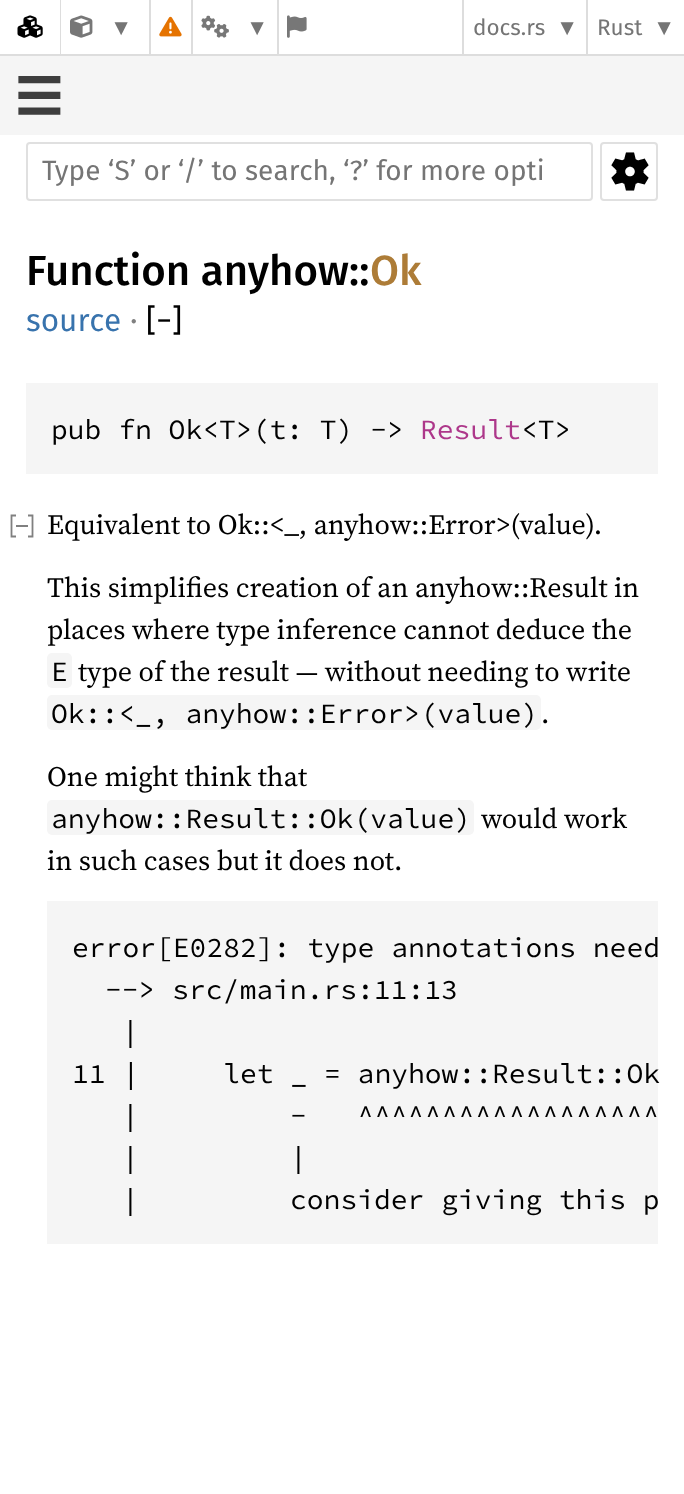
<svg xmlns="http://www.w3.org/2000/svg" width="684" height="1494">
<rect width="100%" height="100%" fill="#fff"/>
<rect y="54" width="684" height="2" fill="#ddd"/>
<image x="17" y="15" width="26" height="23" href="media/1.png"/>
<rect x="60" width="1" height="54" fill="#ddd"/>
<image x="70" y="15" width="23" height="23" href="media/2.png"/>
<text x="110" y="35" style="font-family:Liberation Sans;font-size:22.5px;fill:#757575">▼</text>
<rect x="149" width="2" height="54" fill="#ddd"/>
<image x="159" y="16" width="23" height="21" href="media/3.png"/>
<rect x="191" width="2" height="54" fill="#ddd"/>
<image x="201" y="15" width="28" height="23" href="media/4.png"/>
<text x="246" y="35" style="font-family:Liberation Sans;font-size:22.5px;fill:#757575">▼</text>
<rect x="277" width="2" height="54" fill="#ddd"/>
<image x="287" y="15" width="20" height="23" href="media/5.png"/>
<rect x="462" width="2" height="54" fill="#ddd"/>
<text x="473" y="35" style="font-family:Fira Sans;font-size:22.5px;fill:#757575">docs.rs</text>
<text x="556" y="35" style="font-family:Liberation Sans;font-size:22.5px;fill:#757575">▼</text>
<rect x="586" width="2" height="54" fill="#ddd"/>
<text x="597" y="35" style="font-family:Fira Sans;font-size:22.5px;fill:#757575">Rust</text>
<text x="653" y="35" style="font-family:Liberation Sans;font-size:22.5px;fill:#757575">▼</text>
<rect y="56" width="684" height="79" fill="#f5f5f5"/>
<image x="18" y="76" width="43" height="39" href="media/6.png"/>
<rect x="27" y="143" width="565" height="57" rx="3" fill="none" stroke="#e0e0e0" stroke-width="2"/>
<text x="42" y="180" style="font-family:Fira Sans;font-size:28px;fill:#757575">Type ‘S’ or ‘/’ to search, ‘?’ for more opti</text>
<rect x="601" y="143" width="56" height="57" rx="3" fill="none" stroke="#e0e0e0" stroke-width="2"/>
<image x="611" y="152" width="38" height="39" href="media/7.png"/>
<text x="26" y="285" style="font-family:Fira Sans;font-size:42px;font-weight:500;fill:#000">Function anyhow::</text>
<text x="370" y="285" style="font-family:Fira Sans;font-size:42px;font-weight:500;fill:#ad7c37">Ok</text>
<text x="26" y="331" style="font-family:Fira Sans;font-size:31.5px;fill:#3873ad">source</text>
<text x="130" y="331" style="font-family:Fira Sans;font-size:31.5px;fill:#808080">·</text>
<text x="146" y="331" style="font-family:Fira Sans;font-size:31.5px;fill:#000">[−]</text>
<rect x="26" y="383" width="632" height="91" fill="#f5f5f5"/>
<text x="51" y="439" style="font-family:Source Code Pro;font-size:28px;fill:#000">pub fn Ok&lt;T&gt;(t: T) -&gt;</text>
<text x="420" y="439" style="font-family:Source Code Pro;font-size:28px;fill:#ad378a">Result</text>
<text x="521" y="439" style="font-family:Source Code Pro;font-size:28px;fill:#000">&lt;T&gt;</text>
<path d="M16 515.5h-4.5v21h4.5m12-21h4.5v21h-4.5m-12-10.5h12" fill="none" stroke="#808080" stroke-width="1.8"/>
<text x="47" y="534" style="font-family:'Source Serif 4';font-size:28px;fill:#000">Equivalent to Ok::&lt;_, anyhow::Error&gt;(value).</text>
<text x="47" y="597" style="font-family:'Source Serif 4';font-size:28px;fill:#000">This simplifies creation of an anyhow::Result in</text>
<text x="47" y="639" style="font-family:'Source Serif 4';font-size:28px;fill:#000">places where type inference cannot deduce the</text>
<rect x="47" y="653" width="25" height="35" rx="5" fill="#f5f5f5"/>
<text x="51" y="681" style="font-family:Source Code Pro;font-size:28px;fill:#000">E</text>
<text x="78" y="681" style="font-family:'Source Serif 4';font-size:28px;fill:#000">type of the result — without needing to write</text>
<rect x="47" y="695" width="494" height="35" rx="5" fill="#f5f5f5"/>
<text x="51" y="723" style="font-family:Source Code Pro;font-size:28px;fill:#000">Ok::&lt;_, anyhow::Error&gt;(value)</text>
<text x="541" y="723" style="font-family:'Source Serif 4';font-size:28px;fill:#000">.</text>
<text x="47" y="786" style="font-family:'Source Serif 4';font-size:28px;fill:#000">One might think that</text>
<rect x="47" y="800" width="427" height="35" rx="5" fill="#f5f5f5"/>
<text x="51" y="828" style="font-family:Source Code Pro;font-size:28px;fill:#000">anyhow::Result::Ok(value)</text>
<text x="481" y="828" style="font-family:'Source Serif 4';font-size:28px;fill:#000">would work</text>
<text x="47" y="870" style="font-family:'Source Serif 4';font-size:28px;fill:#000">in such cases but it does not.</text>
<rect x="47" y="901" width="611" height="343" fill="#f5f5f5"/>
<text x="72" y="957" style="font-family:Source Code Pro;font-size:28px;fill:#000">error[E0282]: type annotations need</text>
<text x="105" y="999" style="font-family:Source Code Pro;font-size:28px;fill:#000">--&gt; src/main.rs:11:13</text>
<text x="122" y="1041" style="font-family:Source Code Pro;font-size:28px;fill:#000">|</text>
<text x="72" y="1083" style="font-family:Source Code Pro;font-size:28px;fill:#000" xml:space="preserve">11 |     let _ = anyhow::Result::Ok</text>
<text x="122" y="1125" style="font-family:Source Code Pro;font-size:28px;fill:#000" xml:space="preserve">|         -   ^^^^^^^^^^^^^^^^^^</text>
<text x="122" y="1167" style="font-family:Source Code Pro;font-size:28px;fill:#000" xml:space="preserve">|         |</text>
<text x="122" y="1209" style="font-family:Source Code Pro;font-size:28px;fill:#000" xml:space="preserve">|         consider giving this p</text>
</svg>
